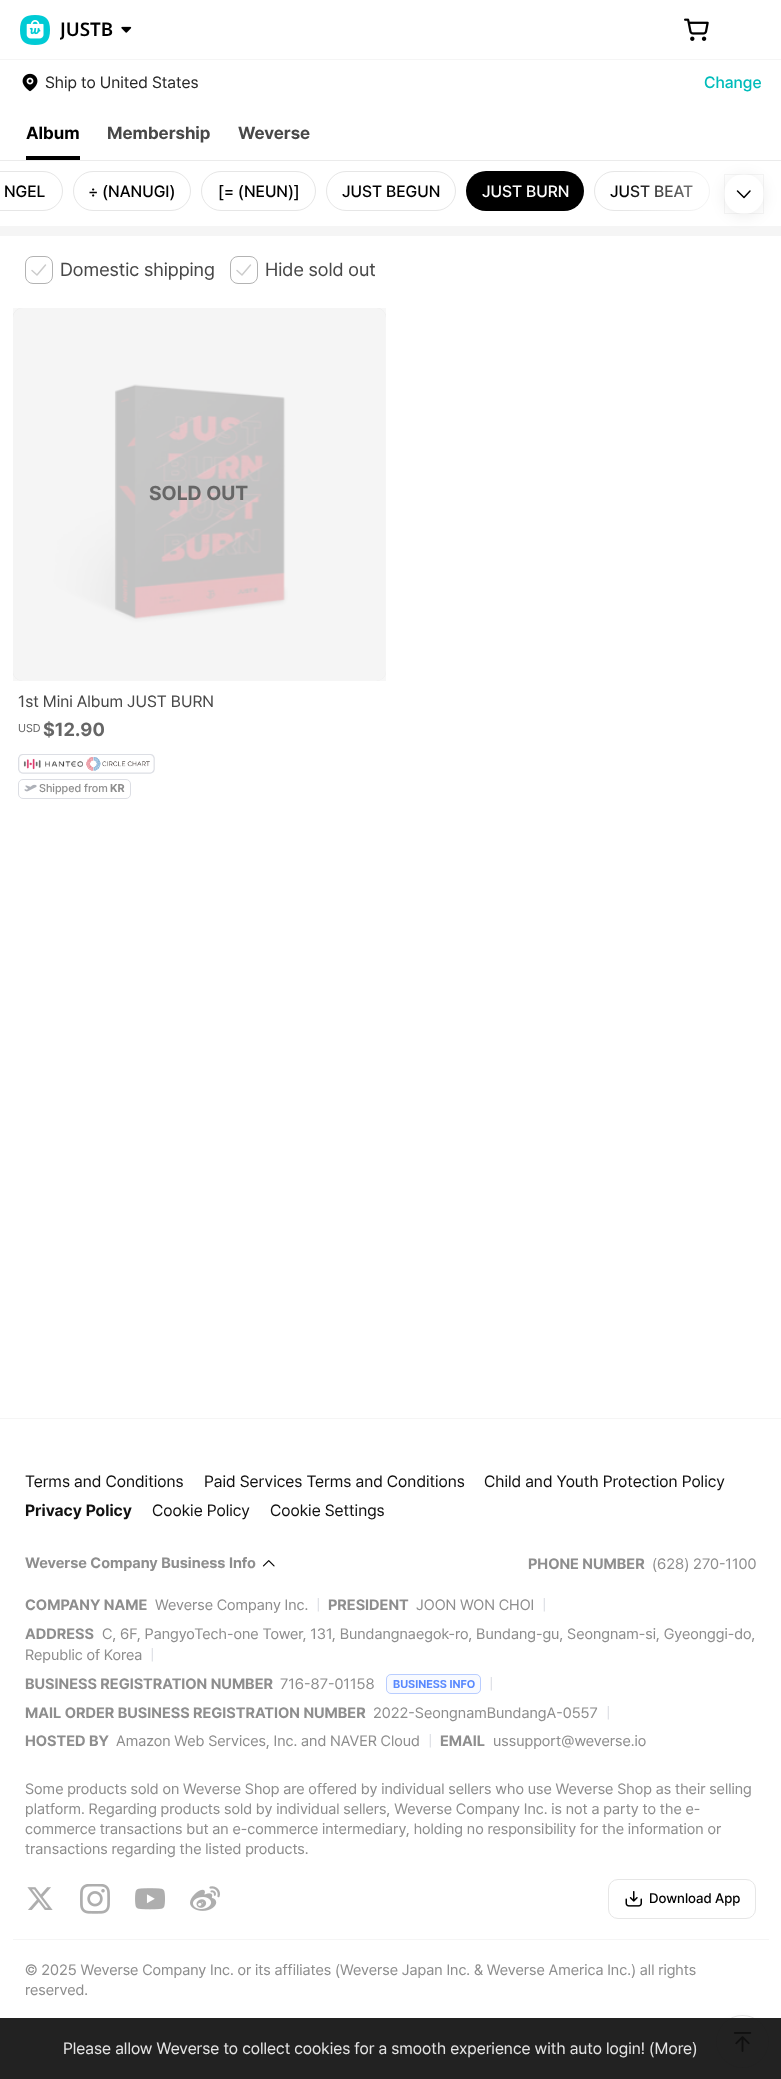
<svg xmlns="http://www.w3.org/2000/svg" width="781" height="2079">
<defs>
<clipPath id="clip1"><rect x="60" y="18" width="54" height="25"/></clipPath>
<linearGradient id="g1" gradientUnits="userSpaceOnUse" x1="781" y1="194" x2="619" y2="194"><stop offset="0" stop-color="#fff"/><stop offset="1" stop-color="#fff" stop-opacity="0"/></linearGradient>
</defs>
<rect width="100%" height="100%" fill="#fff"/>
<rect y="59" width="781" height="1" fill="#f5f5f5"/>
<image x="20" y="15" width="30" height="30" href="media/1.png"/>
<g clip-path="url(#clip1)">
<text x="60" y="36" style="font-family:Noto Sans;font-size:18.75px;font-weight:600;fill:#000">JUSTB</text>
</g>
<image x="121" y="26" width="11" height="7" href="media/2.png"/>
<image x="684" y="18" width="25" height="23" href="media/3.png"/>
<image x="22" y="73" width="16" height="19" href="media/4.png"/>
<text x="45" y="88" style="font-family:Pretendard;font-size:16.25px;fill:#282828">Ship to United States</text>
<text x="704" y="88" style="font-family:Pretendard;font-size:16.25px;font-weight:500;fill:#00bcba">Change</text>
<rect y="160" width="781" height="1" fill="#ebebeb"/>
<text x="26" y="139" style="font-family:Pretendard;font-size:17.5px;font-weight:bold;fill:#000">Album</text>
<rect x="26" y="156" width="54" height="4" fill="#000"/>
<text x="107" y="139" style="font-family:Pretendard;font-size:17.5px;font-weight:bold;fill:#484848">Membership</text>
<text x="238" y="139" style="font-family:Pretendard;font-size:17.5px;font-weight:bold;fill:#484848">Weverse</text>
<rect x="-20.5" y="171.5" width="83" height="39" rx="19.5" fill="none" stroke="#e6e6e6"/>
<text x="4" y="197" style="font-family:Pretendard;font-size:16.25px;font-weight:500;fill:#000">NGEL</text>
<rect x="73.5" y="171.5" width="117" height="39" rx="19.5" fill="none" stroke="#e6e6e6"/>
<text x="88" y="197" style="font-family:Pretendard;font-size:16.25px;font-weight:500;fill:#000">÷ (NANUGI)</text>
<rect x="201.5" y="171.5" width="114" height="39" rx="19.5" fill="none" stroke="#e6e6e6"/>
<text x="218" y="197" style="font-family:Pretendard;font-size:16.25px;font-weight:500;fill:#000">[= (NEUN)]</text>
<rect x="326.5" y="171.5" width="129" height="39" rx="19.5" fill="none" stroke="#e6e6e6"/>
<text x="342" y="197" style="font-family:Pretendard;font-size:16.25px;font-weight:500;fill:#000">JUST BEGUN</text>
<rect x="466" y="171" width="118" height="40" rx="20" fill="#000"/>
<text x="482" y="197" style="font-family:Pretendard;font-size:16.25px;font-weight:500;fill:#fff">JUST BURN</text>
<rect x="594.5" y="171.5" width="115" height="39" rx="19.5" fill="none" stroke="#e6e6e6"/>
<text x="610" y="197" style="font-family:Pretendard;font-size:16.25px;font-weight:500;fill:#000">JUST BEAT</text>
<rect x="622" y="171" width="88" height="40" fill="url(#g1)"/>
<rect y="226" width="781" height="10" fill="#f5f5f5"/>
<rect x="724" y="176" width="40" height="40" rx="20" fill="#00000014" filter="blur(7.5px)"/>
<circle cx="744" cy="194" r="20" fill="#fff"/>
<rect x="724.5" y="174.5" width="39" height="39" fill="none" stroke="#0000000a"/>
<path d="M737.5 191l6.5 6.5l6-6.5" fill="none" stroke="#000" stroke-width="1.5" stroke-linecap="round" stroke-linejoin="round"/>
<rect x="25.5" y="256.5" width="27" height="27" rx="7.5" fill="none" stroke="#b3b3b3"/>
<path d="M32 270.5l5 4.5l8.5-10" fill="none" stroke="#ccc" stroke-width="1.5" stroke-linecap="round" stroke-linejoin="round"/>
<text x="60" y="276" style="font-family:Pretendard;font-size:18.75px;fill:#484848">Domestic shipping</text>
<rect x="230.5" y="256.5" width="27" height="27" rx="7.5" fill="none" stroke="#b3b3b3"/>
<path d="M237 270.5l5 4.5l8.5-10" fill="none" stroke="#ccc" stroke-width="1.5" stroke-linecap="round" stroke-linejoin="round"/>
<text x="265" y="276" style="font-family:Pretendard;font-size:18.75px;fill:#484848">Hide sold out</text>
<image x="13" y="308" width="373" height="373" href="media/5.png"/>
<rect x="13" y="308" width="373" height="373" fill="#00000008"/>
<rect x="13" y="308" width="373" height="373" rx="10" fill="#f7f7f7c7"/>
<text x="149" y="500" style="font-family:Pretendard;font-size:20px;font-weight:bold;fill:#666">SOLD OUT</text>
<text x="18" y="707" style="font-family:Pretendard;font-size:16.25px;fill:#484848">1st Mini Album JUST BURN</text>
<text x="18" y="732" style="font-family:Pretendard;font-size:11.25px;fill:#666">USD</text>
<text x="43" y="736" style="font-family:Pretendard;font-size:18.75px;font-weight:bold;fill:#666">$12.90</text>
<image x="18" y="754" width="137" height="20" href="media/6.png"/>
<image x="24" y="784" width="13" height="8" href="media/7.png"/>
<rect x="18.5" y="779.5" width="112" height="19" rx="4.5" fill="none" stroke="#dcdee4"/>
<text x="39" y="792" style="font-family:Pretendard;font-size:11.25px;font-weight:500;fill:#8e8e8e">Shipped from</text>
<text x="110" y="792" style="font-family:Pretendard;font-size:11.25px;font-weight:bold;fill:#8e8e8e">KR</text>
<rect y="1418" width="781" height="1" fill="#f5f5f5"/>
<text x="25" y="1487" style="font-family:Pretendard;font-size:16.25px;fill:#111">Terms and Conditions</text>
<text x="204" y="1487" style="font-family:Pretendard;font-size:16.25px;fill:#111">Paid Services Terms and Conditions</text>
<text x="484" y="1487" style="font-family:Pretendard;font-size:16.25px;fill:#111">Child and Youth Protection Policy</text>
<text x="25" y="1516" style="font-family:Pretendard;font-size:16.25px;font-weight:bold;fill:#111">Privacy Policy</text>
<text x="152" y="1516" style="font-family:Pretendard;font-size:16.25px;fill:#111">Cookie Policy</text>
<text x="270" y="1516" style="font-family:Pretendard;font-size:16.25px;fill:#111">Cookie Settings</text>
<text x="25" y="1568" style="font-family:Pretendard;font-size:15px;font-weight:bold;fill:#8e8e8e">Weverse Company Business Info</text>
<image x="262" y="1560" width="13" height="7" href="media/8.png"/>
<text x="528" y="1569" style="font-family:Pretendard;font-size:15px;font-weight:bold;fill:#8e8e8e">PHONE NUMBER</text>
<text x="652" y="1569" style="font-family:Pretendard;font-size:15px;fill:#8e8e8e">(628) 270-1100</text>
<text x="25" y="1610" style="font-family:Pretendard;font-size:15px;font-weight:bold;fill:#8e8e8e">COMPANY NAME</text>
<text x="155" y="1610" style="font-family:Pretendard;font-size:15px;fill:#8e8e8e">Weverse Company Inc.</text>
<text x="316" y="1610" style="font-family:Pretendard;font-size:15px;fill:#dcdee4">|</text>
<text x="328" y="1610" style="font-family:Pretendard;font-size:15px;font-weight:bold;fill:#8e8e8e">PRESIDENT</text>
<text x="416" y="1610" style="font-family:Pretendard;font-size:15px;fill:#8e8e8e">JOON WON CHOI</text>
<text x="542" y="1610" style="font-family:Pretendard;font-size:15px;fill:#dcdee4">|</text>
<text x="25" y="1639" style="font-family:Pretendard;font-size:15px;font-weight:bold;fill:#8e8e8e">ADDRESS</text>
<text x="102" y="1639" style="font-family:Pretendard;font-size:15px;fill:#8e8e8e">C, 6F, PangyoTech-one Tower, 131, Bundangnaegok-ro, Bundang-gu, Seongnam-si, Gyeonggi-do,</text>
<text x="25" y="1660" style="font-family:Pretendard;font-size:15px;fill:#8e8e8e">Republic of Korea</text>
<text x="150" y="1660" style="font-family:Pretendard;font-size:15px;fill:#dcdee4">|</text>
<text x="25" y="1689" style="font-family:Pretendard;font-size:15px;font-weight:bold;fill:#8e8e8e">BUSINESS REGISTRATION NUMBER</text>
<text x="280" y="1689" style="font-family:Pretendard;font-size:15px;fill:#8e8e8e">716-87-01158</text>
<rect x="386" y="1674" width="95" height="20" rx="5" fill="#f8faff"/>
<rect x="386.5" y="1674.5" width="94" height="19" rx="4.5" fill="none" stroke="#5989fe66"/>
<text x="393" y="1688" style="font-family:Pretendard;font-size:11.25px;font-weight:bold;fill:#5989fe">BUSINESS INFO</text>
<text x="489" y="1689" style="font-family:Pretendard;font-size:15px;fill:#dcdee4">|</text>
<text x="25" y="1718" style="font-family:Pretendard;font-size:15px;font-weight:bold;fill:#8e8e8e">MAIL ORDER BUSINESS REGISTRATION NUMBER</text>
<text x="373" y="1718" style="font-family:Pretendard;font-size:15px;fill:#8e8e8e">2022-SeongnamBundangA-0557</text>
<text x="606" y="1718" style="font-family:Pretendard;font-size:15px;fill:#dcdee4">|</text>
<text x="25" y="1746" style="font-family:Pretendard;font-size:15px;font-weight:bold;fill:#8e8e8e">HOSTED BY</text>
<text x="116" y="1746" style="font-family:Pretendard;font-size:15px;fill:#8e8e8e">Amazon Web Services, Inc. and NAVER Cloud</text>
<text x="428" y="1746" style="font-family:Pretendard;font-size:15px;fill:#dcdee4">|</text>
<text x="440" y="1746" style="font-family:Pretendard;font-size:15px;font-weight:bold;fill:#8e8e8e">EMAIL</text>
<text x="493" y="1746" style="font-family:Pretendard;font-size:15px;fill:#8e8e8e">ussupport@weverse.io</text>
<text x="25" y="1794" style="font-family:Pretendard;font-size:15px;fill:#8e8e8e">Some products sold on Weverse Shop are offered by individual sellers who use Weverse Shop as their selling</text>
<text x="25" y="1814" style="font-family:Pretendard;font-size:15px;fill:#8e8e8e">platform. Regarding products sold by individual sellers, Weverse Company Inc. is not a party to the e-</text>
<text x="25" y="1834" style="font-family:Pretendard;font-size:15px;fill:#8e8e8e">commerce transactions but an e-commerce intermediary, holding no responsibility for the information or</text>
<text x="25" y="1854" style="font-family:Pretendard;font-size:15px;fill:#8e8e8e">transactions regarding the listed products.</text>
<image x="27" y="1887" width="26" height="23" href="media/9.png"/>
<image x="80" y="1884" width="30" height="30" href="media/10.png"/>
<image x="135" y="1888" width="30" height="22" href="media/11.png"/>
<image x="190" y="1886" width="30" height="25" href="media/12.png"/>
<rect x="608.5" y="1879.5" width="147" height="39" rx="9.5" fill="none" stroke="#e6e6e6"/>
<image x="625" y="1891" width="17" height="16" href="media/13.png"/>
<text x="649" y="1903" style="font-family:Pretendard;font-size:13.75px;font-weight:500;fill:#000">Download App</text>
<rect x="13" y="1939" width="756" height="1" fill="#f5f5f5"/>
<text x="25" y="1975" style="font-family:Pretendard;font-size:15px;fill:#8e8e8e">© 2025 Weverse Company Inc. or its affiliates (Weverse Japan Inc. &amp; Weverse America Inc.) all rights</text>
<text x="25" y="1995" style="font-family:Pretendard;font-size:15px;fill:#8e8e8e">reserved.</text>
<rect x="716" y="2020" width="53" height="53" rx="26.5" fill="#0000000f" filter="blur(5px)"/>
<circle cx="742.5" cy="2041.5" r="26.5" fill="#fff"/>
<image x="733" y="2032" width="19" height="20" href="media/14.png"/>
<circle cx="742.5" cy="2041.5" r="26" fill="none" stroke="#0000001a"/>
<rect y="2018" width="781" height="61" fill="#111111ed"/>
<text x="63" y="2054" style="font-family:Pretendard;font-size:16.25px;fill:#e4e4e4">Please allow Weverse to collect cookies for a smooth experience with auto login! (More)</text>
</svg>
